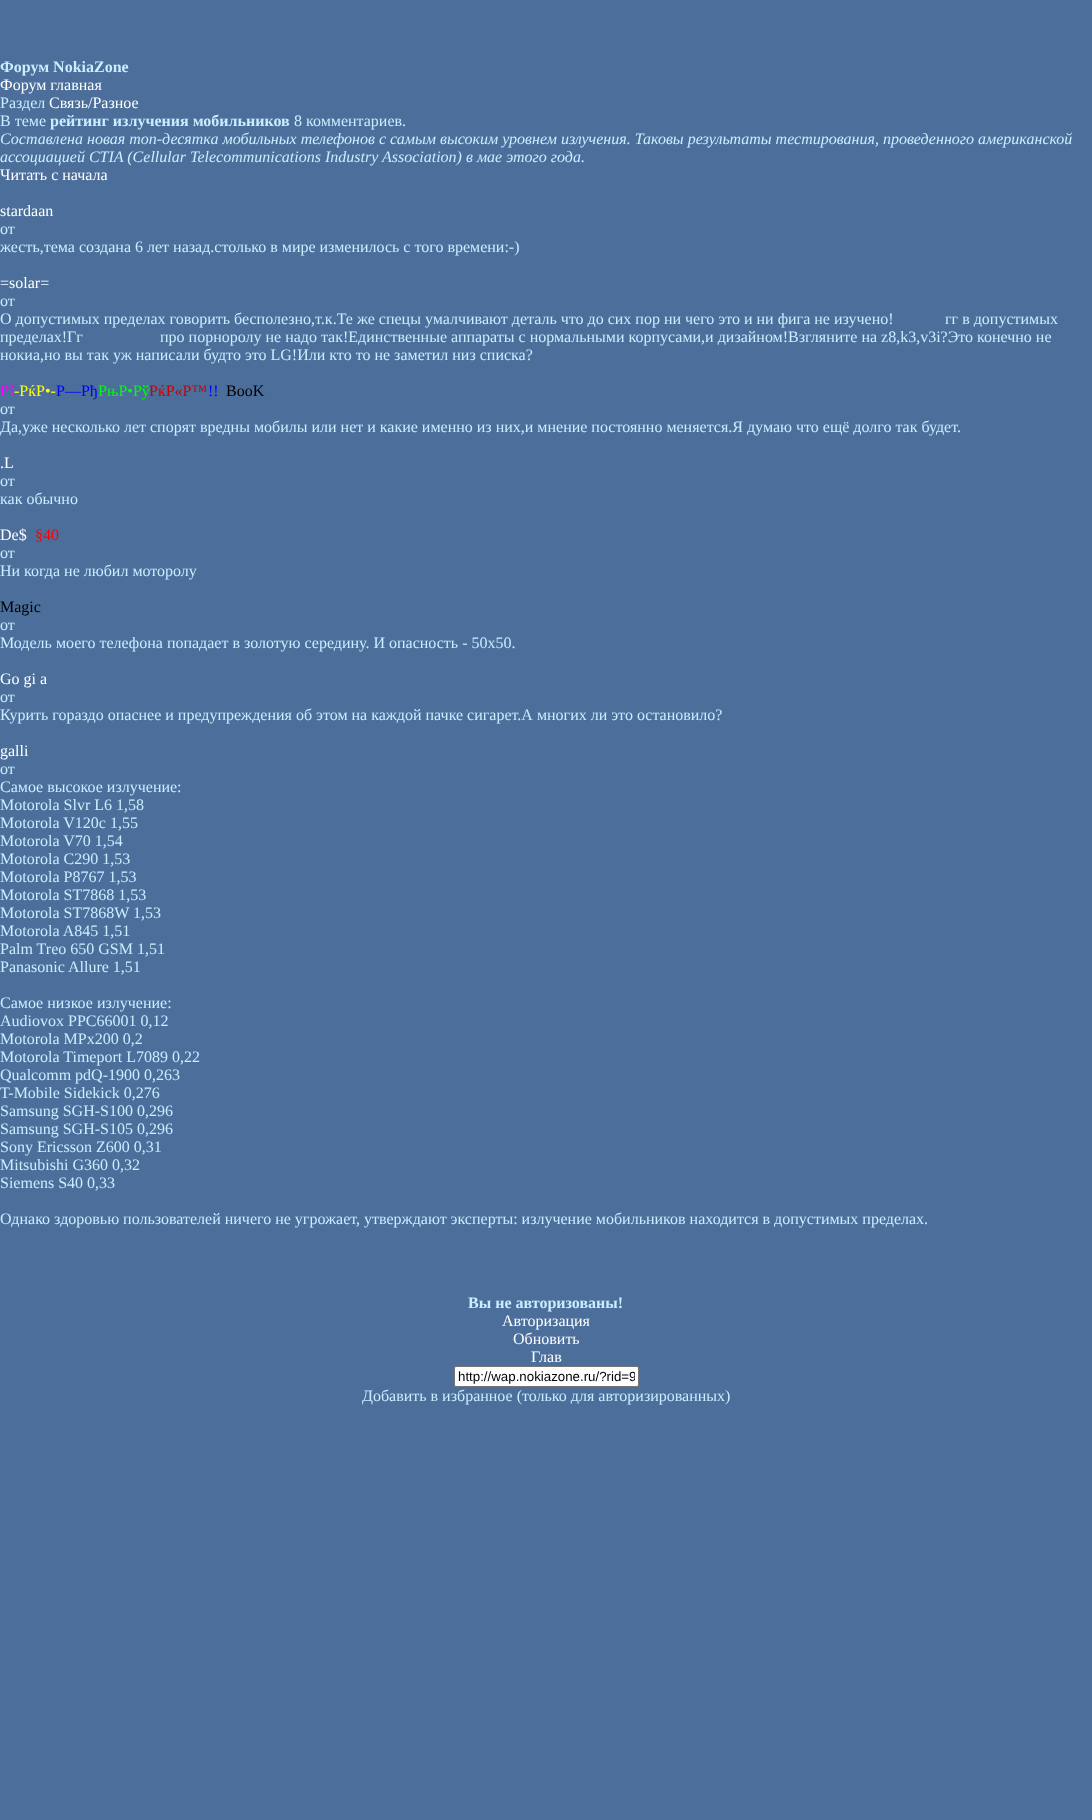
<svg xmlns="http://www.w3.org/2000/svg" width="1092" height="1820">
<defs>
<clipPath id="clip1"><rect x="458" y="1369" width="177" height="15"/></clipPath>
</defs>
<rect width="100%" height="100%" fill="#4b6e9b"/>
<text x="0" y="72" style="font-family:Liberation Serif;font-size:16px;font-weight:bold;fill:#caedff">Форум NokiaZone</text>
<text x="0" y="90" style="font-family:Liberation Serif;font-size:16px;fill:#fff">Форум главная</text>
<text x="0" y="108" style="font-family:Liberation Serif;font-size:16px;fill:#caedff">Раздел</text>
<text x="49" y="108" style="font-family:Liberation Serif;font-size:16px;fill:#fff">Связь/Разное</text>
<text x="0" y="126" style="font-family:Liberation Serif;font-size:16px;fill:#caedff">В теме</text>
<text x="50" y="126" style="font-family:Liberation Serif;font-size:16px;font-weight:bold;fill:#caedff">рейтинг излучения мобильников</text>
<text x="294" y="126" style="font-family:Liberation Serif;font-size:16px;fill:#caedff">8 комментариев.</text>
<text x="0" y="144" style="font-family:Liberation Serif;font-size:16px;font-style:italic;fill:#caedff">Составлена новая топ-десятка мобильных телефонов с самым высоким уровнем излучения. Таковы результаты тестирования, проведенного американской</text>
<text x="0" y="162" style="font-family:Liberation Serif;font-size:16px;font-style:italic;fill:#caedff">ассоциацией CTIA (Cellular Telecommunications Industry Association) в мае этого года.</text>
<text x="0" y="180" style="font-family:Liberation Serif;font-size:16px;fill:#fff">Читать с начала</text>
<text x="0" y="216" style="font-family:Liberation Serif;font-size:16px;fill:#fff">stardaan</text>
<text x="0" y="234" style="font-family:Liberation Serif;font-size:16px;fill:#caedff">от</text>
<text x="0" y="252" style="font-family:Liberation Serif;font-size:16px;fill:#caedff">жесть,тема создана 6 лет назад.столько в мире изменилось с того времени:-)</text>
<text x="0" y="288" style="font-family:Liberation Serif;font-size:16px;fill:#fff">=solar=</text>
<text x="0" y="306" style="font-family:Liberation Serif;font-size:16px;fill:#caedff">от</text>
<text x="0" y="324" style="font-family:Liberation Serif;font-size:16px;fill:#caedff">О допустимых пределах говорить бесполезно,т.к.Те же спецы умалчивают деталь что до сих пор ни чего это и ни фига не изучено!</text>
<text x="945" y="324" style="font-family:Liberation Serif;font-size:16px;fill:#caedff">гг в допустимых</text>
<text x="0" y="342" style="font-family:Liberation Serif;font-size:16px;fill:#caedff">пределах!Гг</text>
<text x="160" y="342" style="font-family:Liberation Serif;font-size:16px;fill:#caedff">про порноролу не надо так!Единственные аппараты с нормальными корпусами,и дизайном!Взгляните на z8,k3,v3i?Это конечно не</text>
<text x="0" y="360" style="font-family:Liberation Serif;font-size:16px;fill:#caedff">нокиа,но вы так уж написали будто это LG!Или кто то не заметил низ списка?</text>
<text x="0" y="396" style="font-family:Liberation Serif;font-size:16px;fill:#f0f">РЇ</text>
<text x="14" y="396" style="font-family:Liberation Serif;font-size:16px;fill:#ff0">-РќР•-</text>
<text x="56" y="396" style="font-family:Liberation Serif;font-size:16px;fill:#00f">Р—Рђ</text>
<text x="98" y="396" style="font-family:Liberation Serif;font-size:16px;fill:#0f0">РњР•Рў</text>
<text x="149" y="396" style="font-family:Liberation Serif;font-size:16px;fill:#c00">РќР«Р™</text>
<text x="208" y="396" style="font-family:Liberation Serif;font-size:16px;fill:#00f">!!</text>
<text x="226" y="396" style="font-family:Liberation Serif;font-size:16px;fill:#000">BooK</text>
<text x="0" y="414" style="font-family:Liberation Serif;font-size:16px;fill:#caedff">от</text>
<text x="0" y="432" style="font-family:Liberation Serif;font-size:16px;fill:#caedff">Да,уже несколько лет спорят вредны мобилы или нет и какие именно из них,и мнение постоянно меняется.Я думаю что ещё долго так будет.</text>
<text x="0" y="468" style="font-family:Liberation Serif;font-size:16px;fill:#fff">.L</text>
<text x="0" y="486" style="font-family:Liberation Serif;font-size:16px;fill:#caedff">от</text>
<text x="0" y="504" style="font-family:Liberation Serif;font-size:16px;fill:#caedff">как обычно</text>
<text x="0" y="540" style="font-family:Liberation Serif;font-size:16px;fill:#fff">De$</text>
<text x="35" y="540" style="font-family:Liberation Serif;font-size:16px;fill:#f00">§40</text>
<text x="0" y="558" style="font-family:Liberation Serif;font-size:16px;fill:#caedff">от</text>
<text x="0" y="576" style="font-family:Liberation Serif;font-size:16px;fill:#caedff">Ни когда не любил моторолу</text>
<text x="0" y="612" style="font-family:Liberation Serif;font-size:16px;fill:#000">Magic</text>
<text x="0" y="630" style="font-family:Liberation Serif;font-size:16px;fill:#caedff">от</text>
<text x="0" y="648" style="font-family:Liberation Serif;font-size:16px;fill:#caedff">Модель моего телефона попадает в золотую середину. И опасность - 50х50.</text>
<text x="0" y="684" style="font-family:Liberation Serif;font-size:16px;fill:#fff">Go gi a</text>
<text x="0" y="702" style="font-family:Liberation Serif;font-size:16px;fill:#caedff">от</text>
<text x="0" y="720" style="font-family:Liberation Serif;font-size:16px;fill:#caedff">Курить гораздо опаснее и предупреждения об этом на каждой пачке сигарет.А многих ли это остановило?</text>
<text x="0" y="756" style="font-family:Liberation Serif;font-size:16px;fill:#fff">galli</text>
<text x="0" y="774" style="font-family:Liberation Serif;font-size:16px;fill:#caedff">от</text>
<text x="0" y="792" style="font-family:Liberation Serif;font-size:16px;fill:#caedff">Самое высокое излучение:</text>
<text x="0" y="810" style="font-family:Liberation Serif;font-size:16px;fill:#caedff">Motorola Slvr L6 1,58</text>
<text x="0" y="828" style="font-family:Liberation Serif;font-size:16px;fill:#caedff">Motorola V120c 1,55</text>
<text x="0" y="846" style="font-family:Liberation Serif;font-size:16px;fill:#caedff">Motorola V70 1,54</text>
<text x="0" y="864" style="font-family:Liberation Serif;font-size:16px;fill:#caedff">Motorola C290 1,53</text>
<text x="0" y="882" style="font-family:Liberation Serif;font-size:16px;fill:#caedff">Motorola P8767 1,53</text>
<text x="0" y="900" style="font-family:Liberation Serif;font-size:16px;fill:#caedff">Motorola ST7868 1,53</text>
<text x="0" y="918" style="font-family:Liberation Serif;font-size:16px;fill:#caedff">Motorola ST7868W 1,53</text>
<text x="0" y="936" style="font-family:Liberation Serif;font-size:16px;fill:#caedff">Motorola A845 1,51</text>
<text x="0" y="954" style="font-family:Liberation Serif;font-size:16px;fill:#caedff">Palm Treo 650 GSM 1,51</text>
<text x="0" y="972" style="font-family:Liberation Serif;font-size:16px;fill:#caedff">Panasonic Allure 1,51</text>
<text x="0" y="1008" style="font-family:Liberation Serif;font-size:16px;fill:#caedff">Самое низкое излучение:</text>
<text x="0" y="1026" style="font-family:Liberation Serif;font-size:16px;fill:#caedff">Audiovox PPC66001 0,12</text>
<text x="0" y="1044" style="font-family:Liberation Serif;font-size:16px;fill:#caedff">Motorola MPx200 0,2</text>
<text x="0" y="1062" style="font-family:Liberation Serif;font-size:16px;fill:#caedff">Motorola Timeport L7089 0,22</text>
<text x="0" y="1080" style="font-family:Liberation Serif;font-size:16px;fill:#caedff">Qualcomm pdQ-1900 0,263</text>
<text x="0" y="1098" style="font-family:Liberation Serif;font-size:16px;fill:#caedff">T-Mobile Sidekick 0,276</text>
<text x="0" y="1116" style="font-family:Liberation Serif;font-size:16px;fill:#caedff">Samsung SGH-S100 0,296</text>
<text x="0" y="1134" style="font-family:Liberation Serif;font-size:16px;fill:#caedff">Samsung SGH-S105 0,296</text>
<text x="0" y="1152" style="font-family:Liberation Serif;font-size:16px;fill:#caedff">Sony Ericsson Z600 0,31</text>
<text x="0" y="1170" style="font-family:Liberation Serif;font-size:16px;fill:#caedff">Mitsubishi G360 0,32</text>
<text x="0" y="1188" style="font-family:Liberation Serif;font-size:16px;fill:#caedff">Siemens S40 0,33</text>
<text x="0" y="1224" style="font-family:Liberation Serif;font-size:16px;fill:#caedff">Однако здоровью пользователей ничего не угрожает, утверждают эксперты: излучение мобильников находится в допустимых пределах.</text>
<text x="468" y="1308" style="font-family:Liberation Serif;font-size:16px;font-weight:bold;fill:#caedff">Вы не авторизованы!</text>
<text x="502" y="1326" style="font-family:Liberation Serif;font-size:16px;fill:#fff">Авторизация</text>
<text x="513" y="1344" style="font-family:Liberation Serif;font-size:16px;fill:#fff">Обновить</text>
<text x="531" y="1362" style="font-family:Liberation Serif;font-size:16px;fill:#fff">Глав</text>
<rect x="454.5" y="1366.5" width="184" height="20" rx="1.5" fill="#fff" stroke="#767676"/>
<g clip-path="url(#clip1)">
<text x="458" y="1381" style="font-family:Liberation Sans;font-size:13.3px;fill:#000">http://wap.nokiazone.ru/?rid=9</text>
</g>
<text x="362" y="1401" style="font-family:Liberation Serif;font-size:16px;fill:#caedff">Добавить в избранное (только для авторизированных)</text>
</svg>
